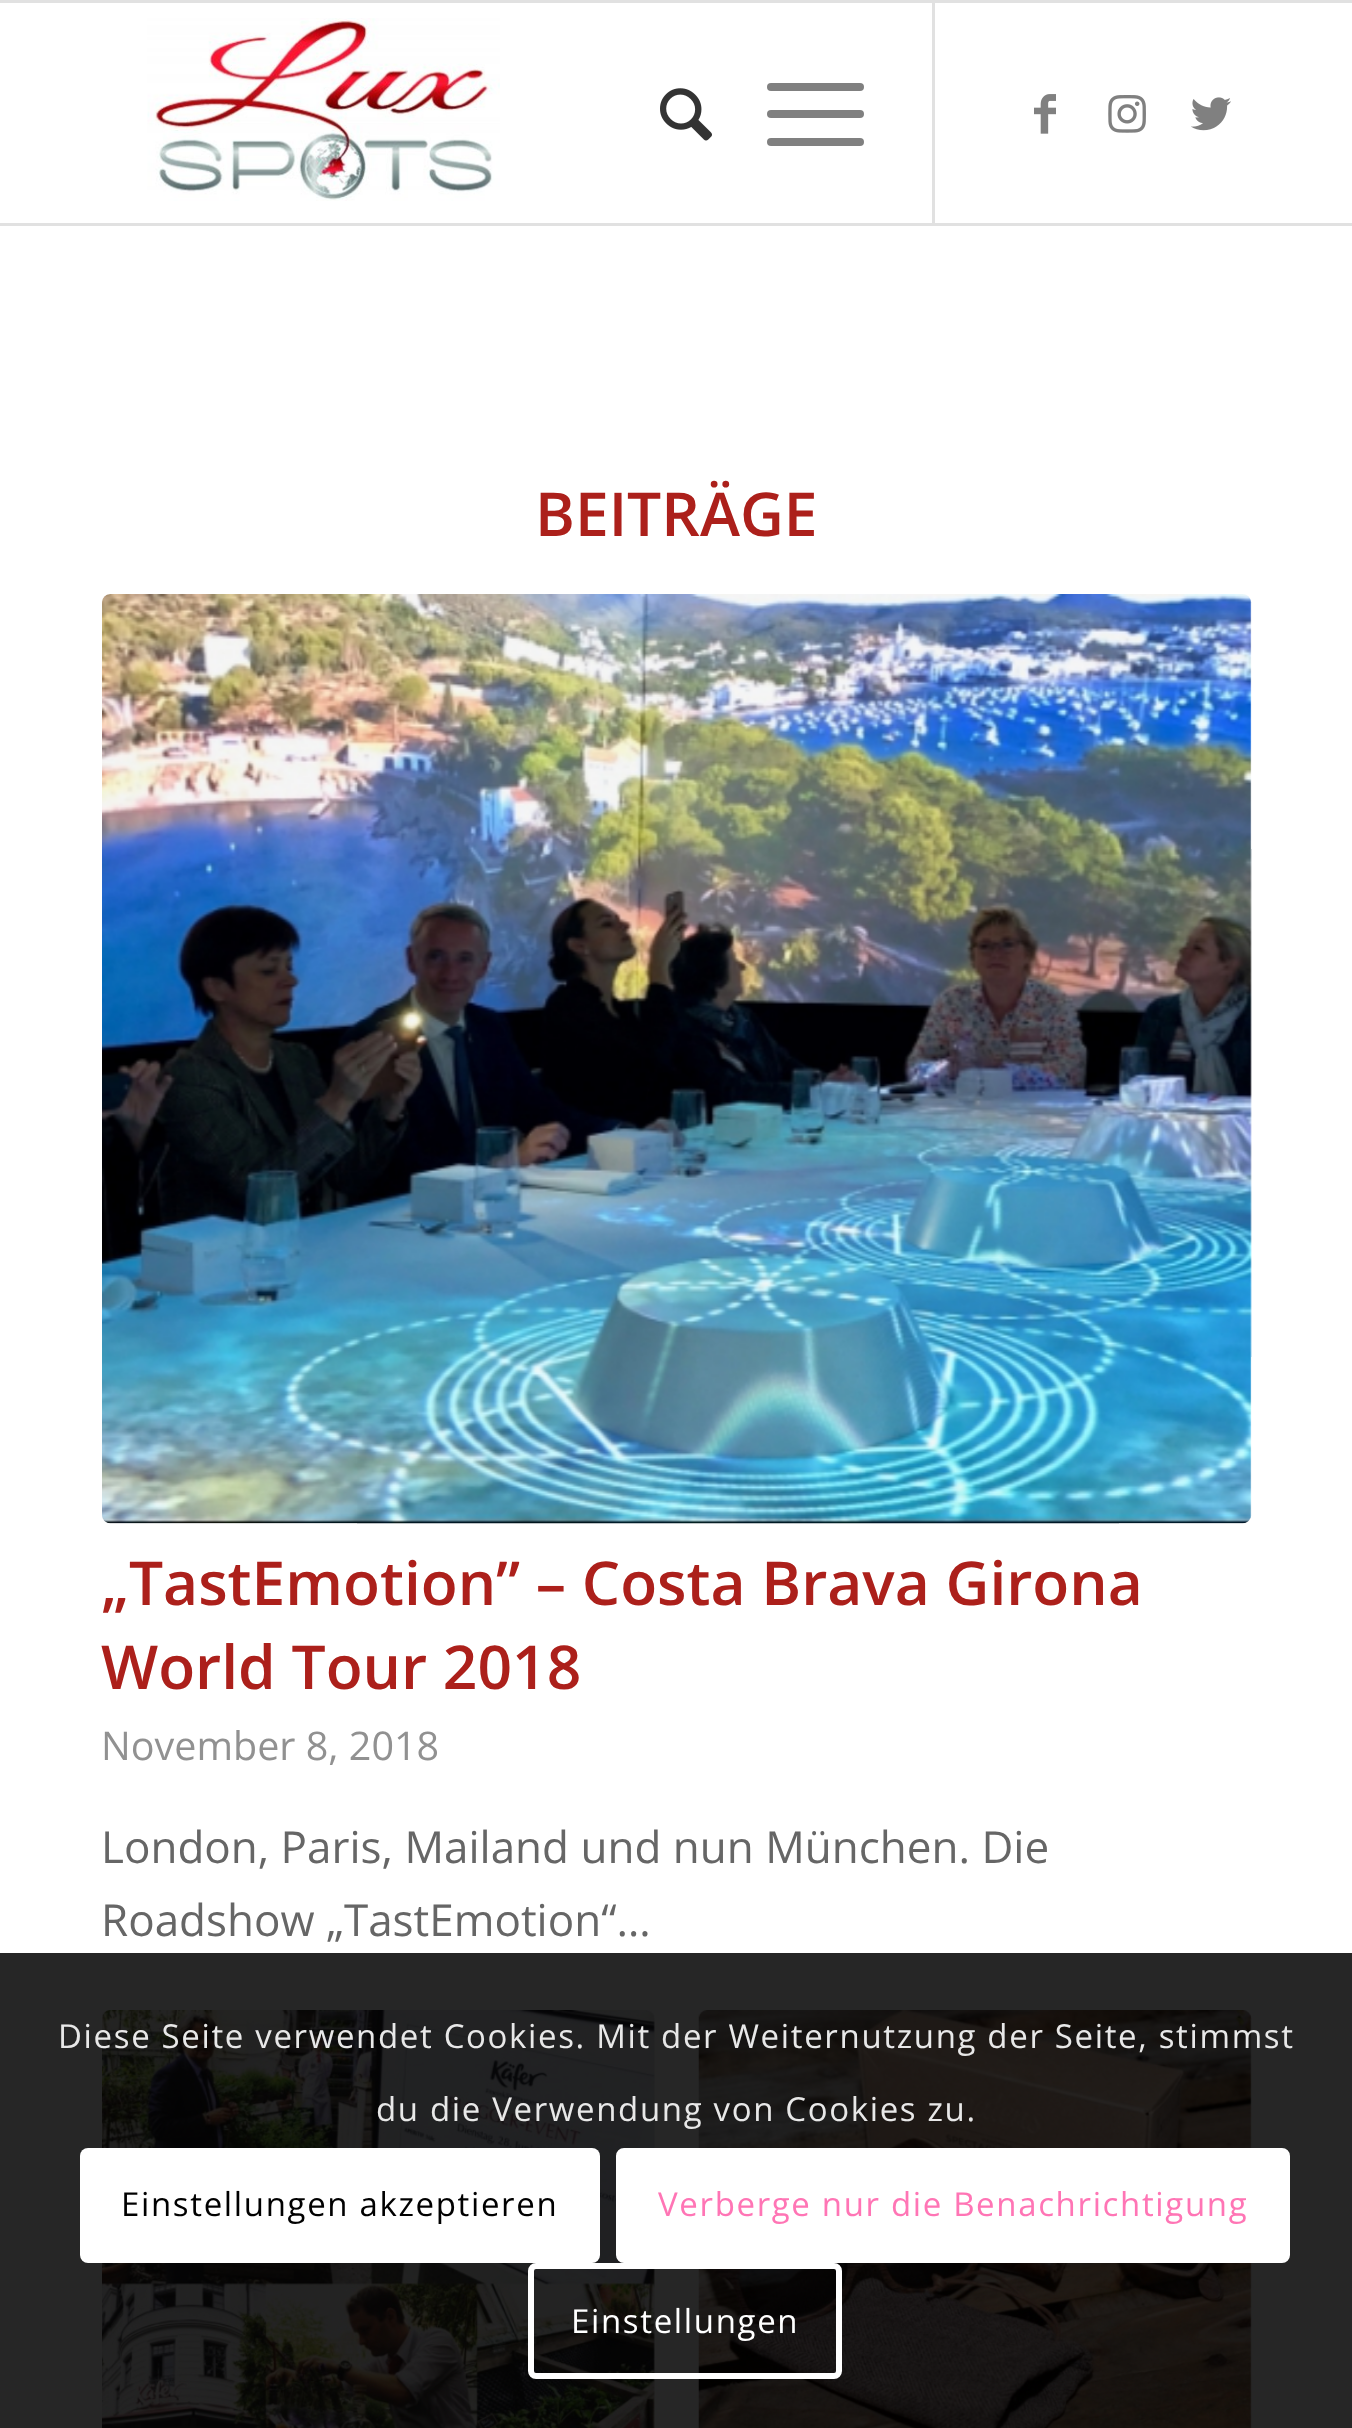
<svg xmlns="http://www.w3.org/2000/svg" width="1352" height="2428">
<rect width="100%" height="100%" fill="#fff"/>
<rect width="1352" height="3" fill="#e1e1e1"/>
<rect y="223" width="1352" height="3" fill="#e1e1e1"/>
<image x="147" y="18" width="353" height="183" href="media/1.png"/>
<rect x="932" y="3" width="3" height="220" fill="#e1e1e1"/>
<image x="660" y="88" width="52" height="53" href="media/2.png"/>
<rect x="767" y="110" width="97" height="8" rx="4" fill="#808080"/>
<rect x="767" y="83" width="97" height="8" rx="4" fill="#808080"/>
<rect x="767" y="138" width="97" height="8" rx="4" fill="#808080"/>
<image x="1034" y="94" width="22" height="40" href="media/3.png"/>
<image x="1108" y="95" width="38" height="38" href="media/4.png"/>
<image x="1191" y="97" width="40" height="34" href="media/5.png"/>
<rect y="1953" width="1352" height="475" fill="#262626"/>
<text x="535" y="536" style="font-family:Open Sans;font-size:60.5px;font-weight:600;fill:#ac201b">BEITRÄGE</text>
<rect x="102" y="594" width="1149" height="930" rx="8" fill="#fcfcfc"/>
<image x="102" y="594" width="1150" height="930" href="media/6.png"/>
<text x="101" y="1605" style="font-family:Open Sans;font-size:60.5px;font-weight:600;fill:#ac201b">„TastEmotion” – Costa Brava Girona</text>
<text x="101" y="1689" style="font-family:Open Sans;font-size:60.5px;font-weight:600;fill:#ac201b">World Tour 2018</text>
<text x="101" y="1760" style="font-family:Open Sans;font-size:39.5px;fill:#919191">November 8, 2018</text>
<text x="101" y="1863" style="font-family:Open Sans;font-size:44px;fill:#666">London, Paris, Mailand und nun München. Die</text>
<text x="101" y="1936" style="font-family:Open Sans;font-size:44px;fill:#666">Roadshow „TastEmotion“…</text>
<image x="102" y="2010" width="553" height="418" href="media/7.png"/>
<image x="698" y="2010" width="554" height="418" href="media/8.png"/>
<text x="58" y="2048" style="font-family:Open Sans;font-size:33px;letter-spacing:1.65px;fill:#e8e8e8">Diese Seite verwendet Cookies. Mit der Weiternutzung der Seite, stimmst</text>
<text x="376" y="2121" style="font-family:Open Sans;font-size:33px;letter-spacing:1.65px;fill:#e8e8e8">du die Verwendung von Cookies zu.</text>
<rect x="80" y="2148" width="520" height="115" rx="8" fill="#fff"/>
<text x="121" y="2216" style="font-family:Open Sans;font-size:33px;letter-spacing:1.65px;fill:#000">Einstellungen akzeptieren</text>
<rect x="619" y="2151" width="668" height="109" rx="5" fill="#fff" stroke="#fff" stroke-width="6"/>
<text x="658" y="2216" style="font-family:Open Sans;font-size:33px;letter-spacing:1.65px;fill:#ff75b5">Verberge nur die Benachrichtigung</text>
<rect x="531" y="2266" width="308" height="110" rx="5" fill="none" stroke="#fff" stroke-width="6"/>
<text x="571" y="2333" style="font-family:Open Sans;font-size:33px;letter-spacing:1.65px;fill:#fff">Einstellungen</text>
</svg>
